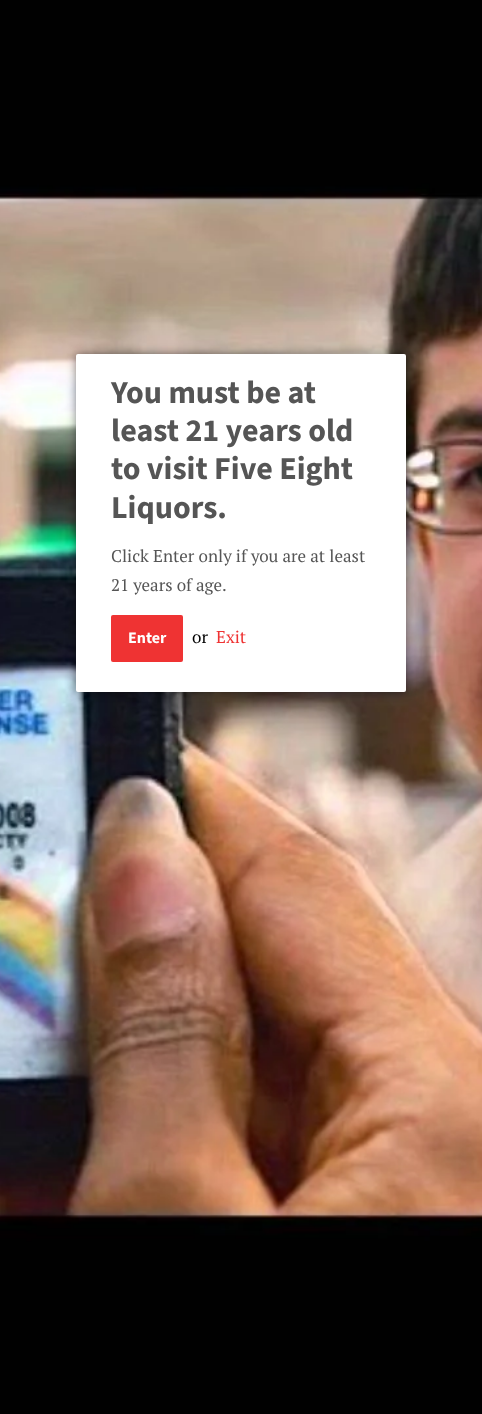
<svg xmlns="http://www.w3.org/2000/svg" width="482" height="1414">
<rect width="100%" height="100%" fill="#fff"/>
<image x="0" y="0" width="482" height="1414" href="media/1.png"/>
<rect x="76" y="354" width="330" height="338" rx="2" fill="#00000080" filter="blur(5px)"/>
<rect x="76" y="354" width="330" height="338" rx="2" fill="#fff"/>
<text x="111" y="403" style="font-family:Source Sans Pro;font-size:32px;font-weight:bold;fill:#555">You must be at</text>
<text x="111" y="441" style="font-family:Source Sans Pro;font-size:32px;font-weight:bold;fill:#555">least 21 years old</text>
<text x="111" y="479" style="font-family:Source Sans Pro;font-size:32px;font-weight:bold;fill:#555">to visit Five Eight</text>
<text x="111" y="518" style="font-family:Source Sans Pro;font-size:32px;font-weight:bold;fill:#555">Liquors.</text>
<text x="111" y="562" style="font-family:PT Serif;font-size:17px;fill:#555">Click Enter only if you are at least</text>
<text x="111" y="591" style="font-family:PT Serif;font-size:17px;fill:#555">21 years of age.</text>
<rect x="111" y="615" width="72" height="47" rx="2" fill="#ef3333"/>
<text x="128" y="643" style="font-family:Source Sans Pro;font-size:16px;font-weight:bold;fill:#fff">Enter</text>
<text x="192" y="643" style="font-family:PT Serif;font-size:17px;fill:#000">or</text>
<text x="216" y="643" style="font-family:PT Serif;font-size:17px;fill:#ef3333">Exit</text>
</svg>
